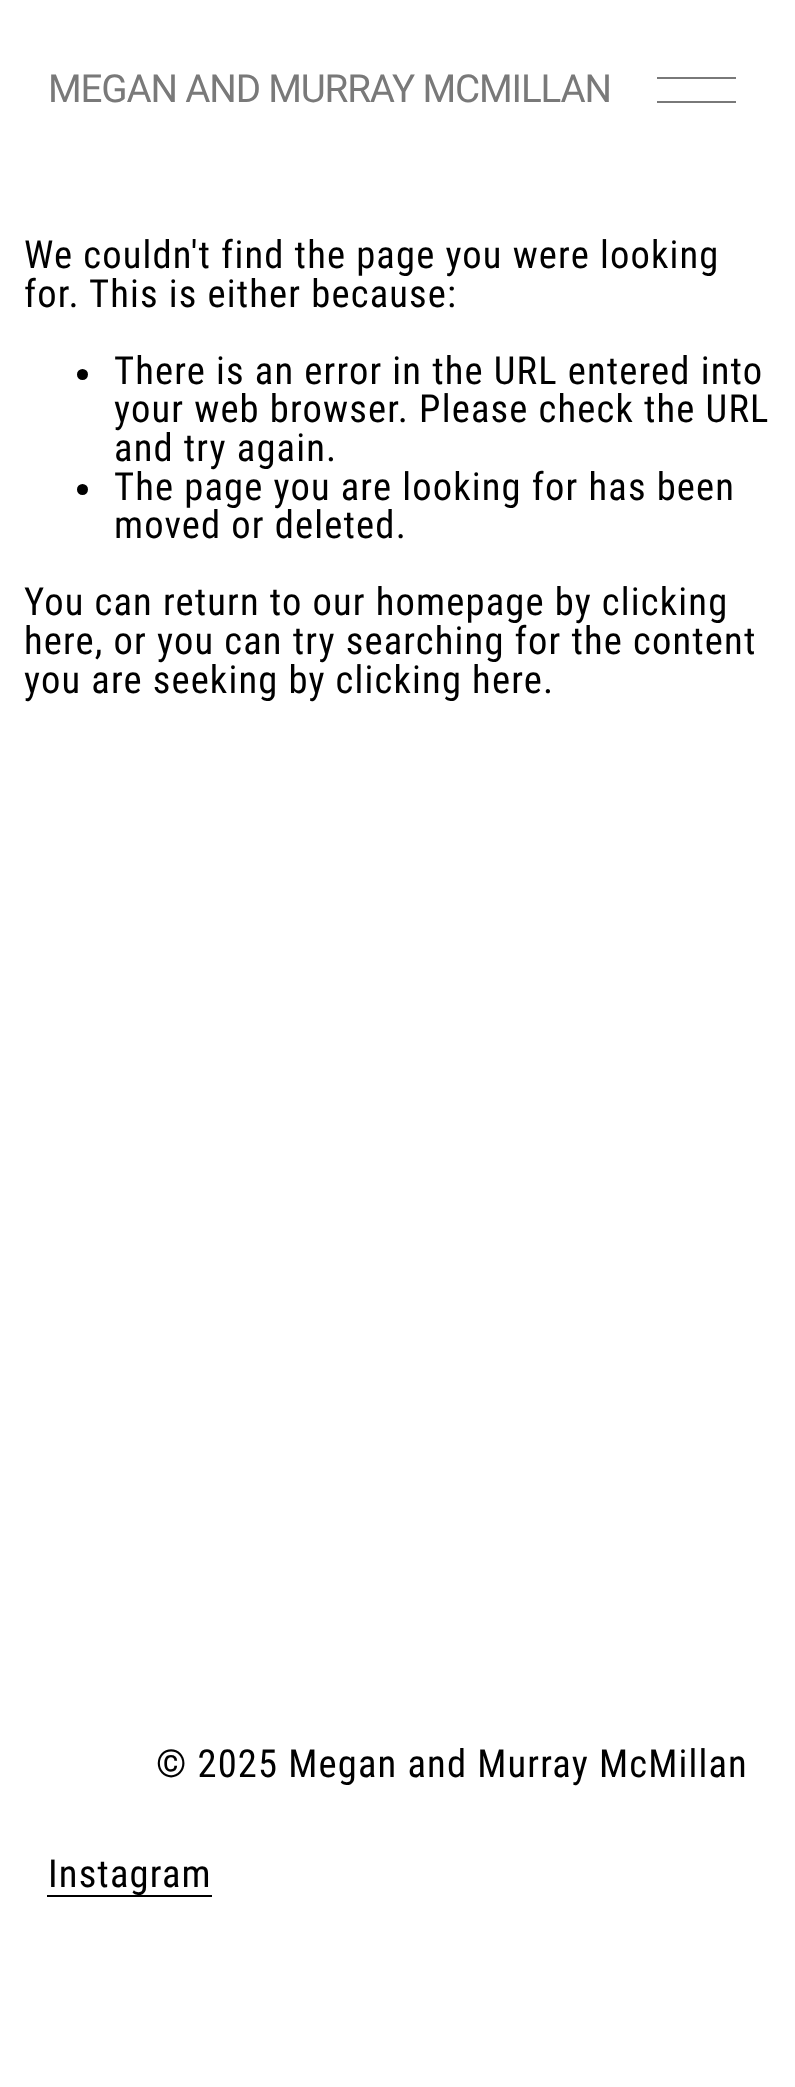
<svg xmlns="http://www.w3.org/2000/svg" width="795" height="2087">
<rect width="100%" height="100%" fill="#fff"/>
<text x="48" y="102" style="font-family:Roboto;font-size:38.6px;letter-spacing:-1.15px;fill:#797979">MEGAN AND MURRAY MCMILLAN</text>
<rect x="657" y="77" width="79" height="2" fill="#797979"/>
<rect x="657" y="101" width="79" height="2" fill="#797979"/>
<text x="24" y="268" style="font-family:Roboto Condensed;font-size:38.6px;letter-spacing:1.15px;fill:#000">We couldn't find the page you were looking</text>
<text x="24" y="307" style="font-family:Roboto Condensed;font-size:38.6px;letter-spacing:1.15px;fill:#000">for. This is either because:</text>
<circle cx="82.5" cy="374.5" r="5.5" fill="#000"/>
<text x="114" y="384" style="font-family:Roboto Condensed;font-size:38.6px;letter-spacing:1.15px;fill:#000">There is an error in the URL entered into</text>
<text x="114" y="422" style="font-family:Roboto Condensed;font-size:38.6px;letter-spacing:1.15px;fill:#000">your web browser. Please check the URL</text>
<text x="114" y="461" style="font-family:Roboto Condensed;font-size:38.6px;letter-spacing:1.15px;fill:#000">and try again.</text>
<circle cx="82.5" cy="489.5" r="5.5" fill="#000"/>
<text x="114" y="500" style="font-family:Roboto Condensed;font-size:38.6px;letter-spacing:1.15px;fill:#000">The page you are looking for has been</text>
<text x="114" y="538" style="font-family:Roboto Condensed;font-size:38.6px;letter-spacing:1.15px;fill:#000">moved or deleted.</text>
<text x="24" y="615" style="font-family:Roboto Condensed;font-size:38.6px;letter-spacing:1.15px;fill:#000">You can return to our homepage by clicking</text>
<text x="24" y="654" style="font-family:Roboto Condensed;font-size:38.6px;letter-spacing:1.15px;fill:#000">here, or you can try searching for the content</text>
<text x="24" y="693" style="font-family:Roboto Condensed;font-size:38.6px;letter-spacing:1.15px;fill:#000">you are seeking by clicking here.</text>
<text x="156" y="1777" style="font-family:Roboto Condensed;font-size:38.6px;letter-spacing:1.15px;fill:#000">© 2025 Megan and Murray McMillan</text>
<rect x="47" y="1895" width="165" height="2" fill="#000"/>
<text x="48" y="1887" style="font-family:Roboto Condensed;font-size:38.6px;letter-spacing:1.15px;fill:#000">Instagram</text>
</svg>
